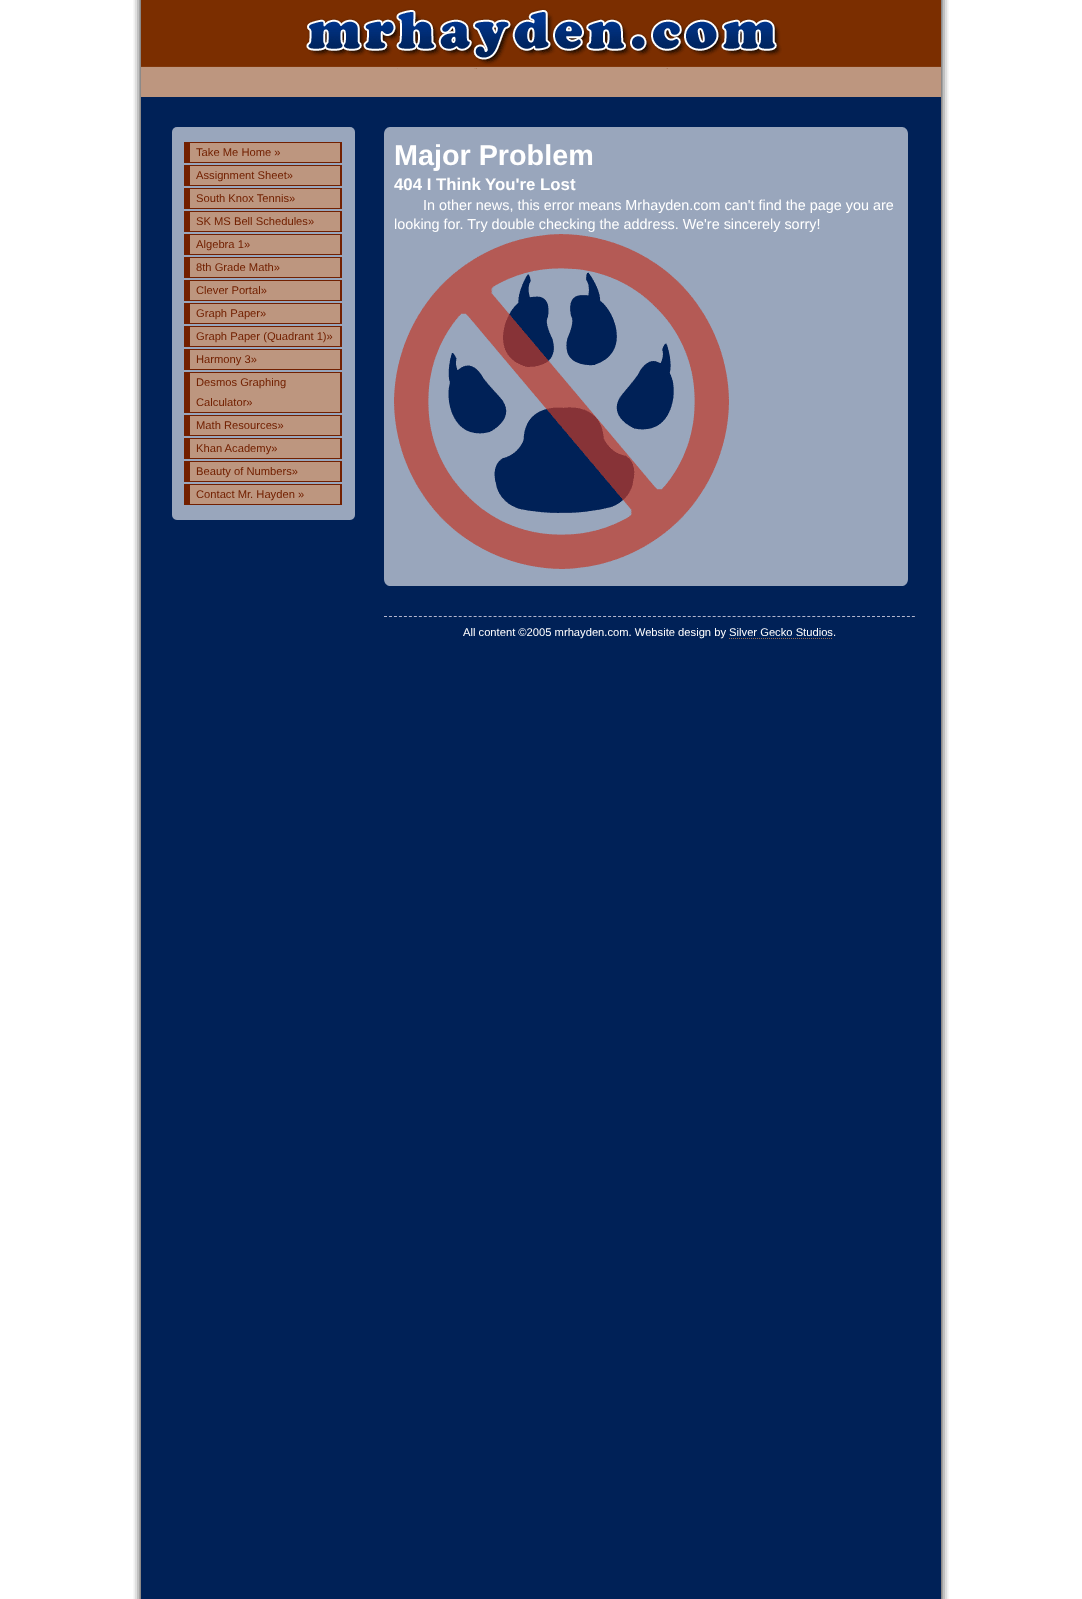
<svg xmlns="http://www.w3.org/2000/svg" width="1082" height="1599">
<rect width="100%" height="100%" fill="#fff"/>
<image x="133" y="0" width="816" height="1599" href="media/1.png"/>
<image x="141" y="0" width="800" height="97" href="media/2.png"/>
<rect x="172" y="127" width="183" height="393" rx="5" fill="#99a6bc"/>
<rect x="190" y="143" width="150" height="19" fill="#bd967f"/>
<rect x="184" y="142" width="158" height="1" fill="#722000"/>
<rect x="340" y="142" width="2" height="21" fill="#722000"/>
<rect x="184" y="162" width="158" height="1" fill="#722000"/>
<rect x="184" y="142" width="6" height="21" fill="#722000"/>
<text x="196" y="156" style="font-family:Liberation Sans;font-size:11.2px;fill:#722000">Take Me Home »</text>
<rect x="190" y="166" width="150" height="19" fill="#bd967f"/>
<rect x="184" y="165" width="158" height="1" fill="#722000"/>
<rect x="340" y="165" width="2" height="21" fill="#722000"/>
<rect x="184" y="185" width="158" height="1" fill="#722000"/>
<rect x="184" y="165" width="6" height="21" fill="#722000"/>
<text x="196" y="179" style="font-family:Liberation Sans;font-size:11.2px;fill:#722000">Assignment Sheet»</text>
<rect x="190" y="189" width="150" height="19" fill="#bd967f"/>
<rect x="184" y="188" width="158" height="1" fill="#722000"/>
<rect x="340" y="188" width="2" height="21" fill="#722000"/>
<rect x="184" y="208" width="158" height="1" fill="#722000"/>
<rect x="184" y="188" width="6" height="21" fill="#722000"/>
<text x="196" y="202" style="font-family:Liberation Sans;font-size:11.2px;fill:#722000">South Knox Tennis»</text>
<rect x="190" y="212" width="150" height="19" fill="#bd967f"/>
<rect x="184" y="211" width="158" height="1" fill="#722000"/>
<rect x="340" y="211" width="2" height="21" fill="#722000"/>
<rect x="184" y="231" width="158" height="1" fill="#722000"/>
<rect x="184" y="211" width="6" height="21" fill="#722000"/>
<text x="196" y="225" style="font-family:Liberation Sans;font-size:11.2px;fill:#722000">SK MS Bell Schedules»</text>
<rect x="190" y="235" width="150" height="19" fill="#bd967f"/>
<rect x="184" y="234" width="158" height="1" fill="#722000"/>
<rect x="340" y="234" width="2" height="21" fill="#722000"/>
<rect x="184" y="254" width="158" height="1" fill="#722000"/>
<rect x="184" y="234" width="6" height="21" fill="#722000"/>
<text x="196" y="248" style="font-family:Liberation Sans;font-size:11.2px;fill:#722000">Algebra 1»</text>
<rect x="190" y="258" width="150" height="19" fill="#bd967f"/>
<rect x="184" y="257" width="158" height="1" fill="#722000"/>
<rect x="340" y="257" width="2" height="21" fill="#722000"/>
<rect x="184" y="277" width="158" height="1" fill="#722000"/>
<rect x="184" y="257" width="6" height="21" fill="#722000"/>
<text x="196" y="271" style="font-family:Liberation Sans;font-size:11.2px;fill:#722000">8th Grade Math»</text>
<rect x="190" y="281" width="150" height="19" fill="#bd967f"/>
<rect x="184" y="280" width="158" height="1" fill="#722000"/>
<rect x="340" y="280" width="2" height="21" fill="#722000"/>
<rect x="184" y="300" width="158" height="1" fill="#722000"/>
<rect x="184" y="280" width="6" height="21" fill="#722000"/>
<text x="196" y="294" style="font-family:Liberation Sans;font-size:11.2px;fill:#722000">Clever Portal»</text>
<rect x="190" y="304" width="150" height="19" fill="#bd967f"/>
<rect x="184" y="303" width="158" height="1" fill="#722000"/>
<rect x="340" y="303" width="2" height="21" fill="#722000"/>
<rect x="184" y="323" width="158" height="1" fill="#722000"/>
<rect x="184" y="303" width="6" height="21" fill="#722000"/>
<text x="196" y="317" style="font-family:Liberation Sans;font-size:11.2px;fill:#722000">Graph Paper»</text>
<rect x="190" y="327" width="150" height="19" fill="#bd967f"/>
<rect x="184" y="326" width="158" height="1" fill="#722000"/>
<rect x="340" y="326" width="2" height="21" fill="#722000"/>
<rect x="184" y="346" width="158" height="1" fill="#722000"/>
<rect x="184" y="326" width="6" height="21" fill="#722000"/>
<text x="196" y="340" style="font-family:Liberation Sans;font-size:11.2px;fill:#722000">Graph Paper (Quadrant 1)»</text>
<rect x="190" y="350" width="150" height="19" fill="#bd967f"/>
<rect x="184" y="349" width="158" height="1" fill="#722000"/>
<rect x="340" y="349" width="2" height="21" fill="#722000"/>
<rect x="184" y="369" width="158" height="1" fill="#722000"/>
<rect x="184" y="349" width="6" height="21" fill="#722000"/>
<text x="196" y="363" style="font-family:Liberation Sans;font-size:11.2px;fill:#722000">Harmony 3»</text>
<rect x="190" y="373" width="150" height="39" fill="#bd967f"/>
<rect x="184" y="372" width="158" height="1" fill="#722000"/>
<rect x="340" y="372" width="2" height="41" fill="#722000"/>
<rect x="184" y="412" width="158" height="1" fill="#722000"/>
<rect x="184" y="372" width="6" height="41" fill="#722000"/>
<text x="196" y="386" style="font-family:Liberation Sans;font-size:11.2px;fill:#722000">Desmos Graphing</text>
<text x="196" y="406" style="font-family:Liberation Sans;font-size:11.2px;fill:#722000">Calculator»</text>
<rect x="190" y="416" width="150" height="19" fill="#bd967f"/>
<rect x="184" y="415" width="158" height="1" fill="#722000"/>
<rect x="340" y="415" width="2" height="21" fill="#722000"/>
<rect x="184" y="435" width="158" height="1" fill="#722000"/>
<rect x="184" y="415" width="6" height="21" fill="#722000"/>
<text x="196" y="429" style="font-family:Liberation Sans;font-size:11.2px;fill:#722000">Math Resources»</text>
<rect x="190" y="439" width="150" height="19" fill="#bd967f"/>
<rect x="184" y="438" width="158" height="1" fill="#722000"/>
<rect x="340" y="438" width="2" height="21" fill="#722000"/>
<rect x="184" y="458" width="158" height="1" fill="#722000"/>
<rect x="184" y="438" width="6" height="21" fill="#722000"/>
<text x="196" y="452" style="font-family:Liberation Sans;font-size:11.2px;fill:#722000">Khan Academy»</text>
<rect x="190" y="462" width="150" height="19" fill="#bd967f"/>
<rect x="184" y="461" width="158" height="1" fill="#722000"/>
<rect x="340" y="461" width="2" height="21" fill="#722000"/>
<rect x="184" y="481" width="158" height="1" fill="#722000"/>
<rect x="184" y="461" width="6" height="21" fill="#722000"/>
<text x="196" y="475" style="font-family:Liberation Sans;font-size:11.2px;fill:#722000">Beauty of Numbers»</text>
<rect x="190" y="485" width="150" height="19" fill="#bd967f"/>
<rect x="184" y="484" width="158" height="1" fill="#722000"/>
<rect x="340" y="484" width="2" height="21" fill="#722000"/>
<rect x="184" y="504" width="158" height="1" fill="#722000"/>
<rect x="184" y="484" width="6" height="21" fill="#722000"/>
<text x="196" y="498" style="font-family:Liberation Sans;font-size:11.2px;fill:#722000">Contact Mr. Hayden »</text>
<image x="172" y="517" width="183" height="3" href="media/3.png"/>
<rect x="384" y="134" width="524" height="445" fill="#99a6bc"/>
<image x="384" y="127" width="524" height="7" href="media/4.png"/>
<text x="394" y="165" style="font-family:Liberation Sans;font-size:28.75px;font-weight:bold;fill:#fff">Major Problem</text>
<text x="394" y="190" style="font-family:Liberation Sans;font-size:16.8px;font-weight:bold;fill:#fff">404 I Think You're Lost</text>
<text x="423" y="210" style="font-family:Liberation Sans;font-size:14.4px;fill:#fff">In other news, this error means Mrhayden.com can't find the page you are</text>
<text x="394" y="229" style="font-family:Liberation Sans;font-size:14.4px;fill:#fff">looking for. Try double checking the address. We're sincerely sorry!</text>
<image x="394" y="234" width="335" height="335" href="media/5.png"/>
<image x="384" y="579" width="524" height="7" href="media/6.png"/>
<path d="M384 616.5h531" fill="none" stroke="#b4b6cd" stroke-dasharray="3 1.98"/>
<text x="463" y="636" style="font-family:Liberation Sans;font-size:11.2px;fill:#fff">All content ©2005 mrhayden.com. Website design by Silver Gecko Studios.</text>
<path d="M729 638.5h104" fill="none" stroke="#9c6d50" stroke-dasharray="1 1"/>
</svg>
